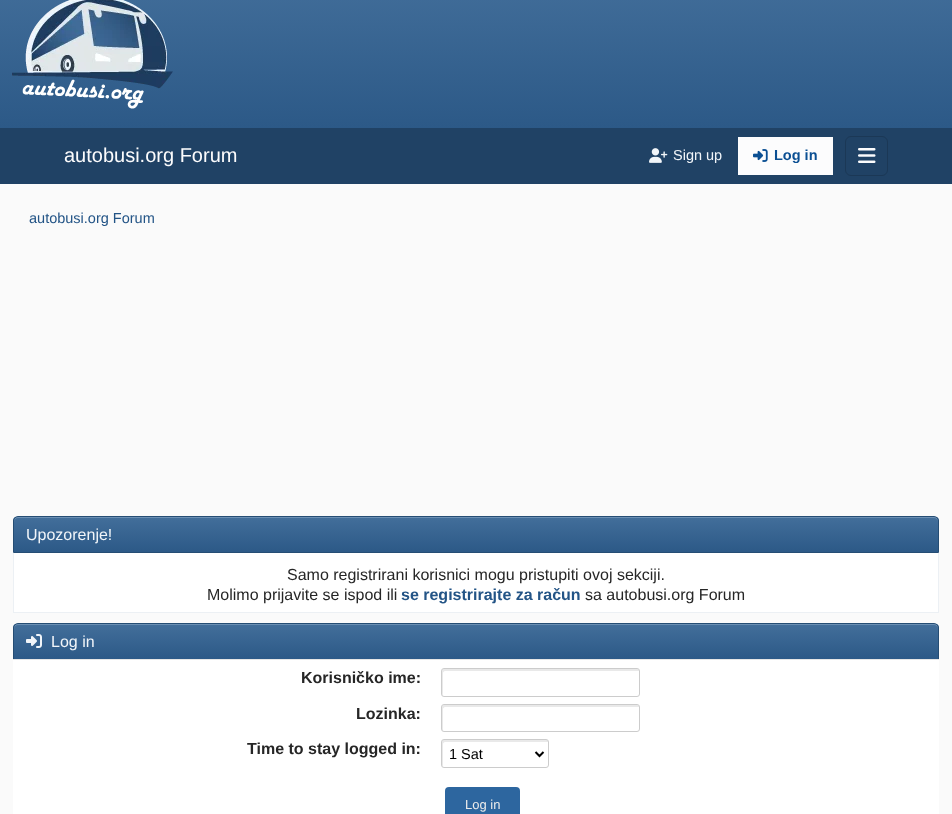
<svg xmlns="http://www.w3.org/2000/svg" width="952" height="814">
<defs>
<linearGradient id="g1" gradientUnits="userSpaceOnUse" x1="476" y1="-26" x2="476" y2="128"><stop offset="0" stop-color="#4f80b0"/><stop offset="0.02" stop-color="#426e9a"/><stop offset="1" stop-color="#2c5987"/></linearGradient>
<clipPath id="clip1"><path d="M18 516h916c3 0 5 2 5 5v32h-926v-32c0-3 2-5 5-5z"/></clipPath>
<linearGradient id="g2" gradientUnits="userSpaceOnUse" x1="476" y1="517" x2="476" y2="552"><stop offset="0" stop-color="#4f80b0"/><stop offset="0.02" stop-color="#426e9a"/><stop offset="1" stop-color="#2c5987"/></linearGradient>
<clipPath id="clip2"><path d="M18 623h916c3 0 5 2 5 5v32h-926v-32c0-3 2-5 5-5z"/></clipPath>
<linearGradient id="g3" gradientUnits="userSpaceOnUse" x1="476" y1="624" x2="476" y2="659"><stop offset="0" stop-color="#4f80b0"/><stop offset="0.02" stop-color="#426e9a"/><stop offset="1" stop-color="#2c5987"/></linearGradient>
</defs>
<rect width="100%" height="100%" fill="#fff"/>
<rect width="952" height="128" fill="url(#g1)"/>
<image x="12" y="0" width="161" height="109" href="media/1.png"/>
<rect y="128" width="952" height="56" fill="#204265"/>
<text x="64" y="162" style="font-family:Liberation Sans;font-size:20px;fill:#fcfcfd">autobusi.org Forum</text>
<image x="649" y="148" width="19" height="15" href="media/2.png"/>
<text x="673" y="160" style="font-family:Liberation Sans;font-size:14.5px;fill:#f1f5f9">Sign up</text>
<rect x="738" y="137" width="95" height="38" fill="#fcfcfd"/>
<image x="753" y="149" width="15" height="13" href="media/3.png"/>
<text x="774" y="160" style="font-family:Liberation Sans;font-size:14.5px;font-weight:bold;fill:#0b4f93">Log in</text>
<rect x="845.5" y="136.5" width="42" height="39" rx="5.5" fill="none" stroke="#1b3856"/>
<image x="858" y="148" width="18" height="15" href="media/4.png"/>
<rect y="184" width="952" height="630" fill="#fafafa"/>
<text x="29" y="223" style="font-family:Liberation Sans;font-size:14.5px;fill:#235486">autobusi.org Forum</text>
<g clip-path="url(#clip1)">
<rect x="13" y="517" width="926" height="35" fill="url(#g2)"/>
</g>
<path d="M18 518h916c2 0 4 2 4 4c0-3-1-5-4-5h-916c-3 0-4 2-4 5c0-2 2-4 4-4z" fill="#ffffff33"/>
<path d="M18 516.5h916c2.5 0 4.5 2 4.5 4.5v31.5h-925v-31.5c0-2.5 2-4.5 4.5-4.5z" fill="none" stroke="#254d74"/>
<text x="26" y="540" style="font-family:Liberation Sans;font-size:16px;fill:#f1f5f9">Upozorenje!</text>
<rect x="14" y="553" width="924" height="59" fill="#fff"/>
<rect x="938" y="553" width="1" height="60" fill="#ecf0f4"/>
<rect x="13" y="612" width="926" height="1" fill="#ecf0f4"/>
<rect x="13" y="553" width="1" height="60" fill="#ecf0f4"/>
<text x="287" y="580" style="font-family:Liberation Sans;font-size:16px;fill:#262626">Samo registrirani korisnici mogu pristupiti ovoj sekciji.</text>
<text x="207" y="600" style="font-family:Liberation Sans;font-size:16px;fill:#262626">Molimo prijavite se ispod ili</text>
<text x="401" y="600" style="font-family:Liberation Sans;font-size:16px;font-weight:bold;fill:#235486">se registrirajte za račun</text>
<text x="585" y="600" style="font-family:Liberation Sans;font-size:16px;fill:#262626">sa autobusi.org Forum</text>
<g clip-path="url(#clip2)">
<rect x="13" y="624" width="926" height="35" fill="url(#g3)"/>
</g>
<path d="M18 625h916c2 0 4 2 4 4c0-3-1-5-4-5h-916c-3 0-4 2-4 5c0-2 2-4 4-4z" fill="#ffffff33"/>
<path d="M18 623.5h916c2.5 0 4.5 2 4.5 4.5v31.5h-925v-31.5c0-2.5 2-4.5 4.5-4.5z" fill="none" stroke="#254d74"/>
<image x="26" y="634" width="16" height="14" href="media/5.png"/>
<text x="51" y="647" style="font-family:Liberation Sans;font-size:16px;fill:#f1f5f9">Log in</text>
<rect x="13" y="660" width="926" height="154" fill="#fff"/>
<rect x="13" y="659" width="926" height="1" fill="#e6e6e6"/>
<text x="301" y="683" style="font-family:Liberation Sans;font-size:16px;font-weight:bold;fill:#262626">Korisničko ime:</text>
<path d="M445 671h194c0-1-1-2-2-2h-193c-1 0-2 1-2 2c0 3-1 24 1 25v-23c0-1 1-2 2-2z" fill="#e9e9e9"/>
<rect x="441.5" y="668.5" width="198" height="28" rx="2.5" fill="none" stroke="#ccc"/>
<text x="356" y="719" style="font-family:Liberation Sans;font-size:16px;font-weight:bold;fill:#262626">Lozinka:</text>
<path d="M445 707h194c0-1-1-2-2-2h-193c-1 0-2 1-2 2v22c0 1 0 1 1 2v-22c0-1 1-2 2-2z" fill="#e9e9e9"/>
<rect x="441.5" y="704.5" width="198" height="27" rx="2.5" fill="none" stroke="#ccc"/>
<text x="247" y="754" style="font-family:Liberation Sans;font-size:16px;font-weight:bold;fill:#262626">Time to stay logged in:</text>
<path d="M445 742h103c0-5-16-2-19-2h-68c-22 0-19-5-19 14c0 2-1 11 1 13v-23c0-1 1-2 2-2z" fill="#e9e9e9"/>
<rect x="441.5" y="739.5" width="107" height="28" rx="2.5" fill="none" stroke="#ccc"/>
<path d="M535.5 752l4 4l4-4" fill="none" stroke="#000" stroke-width="2"/>
<text x="449" y="759" style="font-family:Liberation Sans;font-size:14.5px;fill:#000">1 Sat</text>
<rect x="445" y="787" width="75" height="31" rx="4" fill="#2d669f"/>
<text x="465" y="809" style="font-family:Liberation Sans;font-size:13px;fill:#ebebeb">Log in</text>
</svg>
